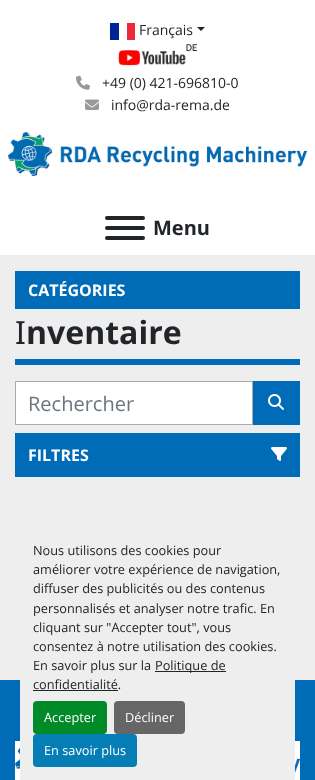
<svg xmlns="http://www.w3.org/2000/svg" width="315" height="780">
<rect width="100%" height="100%" fill="#eee"/>
<rect width="315" height="255" fill="#fff"/>
<rect x="110" y="23" width="9" height="17" fill="#002395"/>
<rect x="127" y="23" width="8" height="17" fill="#ed2939"/>
<text x="139" y="35" style="font-family:Open Sans;font-size:14px;fill:#212529">Français</text>
<path d="M197 27h8l-4 4z" fill="#212529"/>
<image x="118" y="44" width="79" height="22" href="media/1.png"/>
<image x="76" y="75" width="14" height="15" href="media/2.png"/>
<text x="102" y="88" style="font-family:Open Sans;font-size:14px;fill:#212529">+49 (0) 421-696810-0</text>
<image x="85" y="99" width="14" height="11" href="media/3.png"/>
<text x="111" y="110" style="font-family:Open Sans;font-size:14px;fill:#212529">info@rda-rema.de</text>
<rect x="105" y="226" width="40" height="4" rx="2" fill="#212529"/>
<rect x="105" y="216" width="40" height="4" rx="2" fill="#212529"/>
<rect x="105" y="236" width="40" height="4" rx="2" fill="#212529"/>
<text x="153" y="235" style="font-family:Open Sans;font-size:20px;font-weight:bold;fill:#212529">Menu</text>
<image x="8" y="132" width="299" height="44" href="media/4.png"/>
<rect x="15" y="271" width="285" height="38" fill="#006bb7"/>
<text x="28" y="296" style="font-family:Open Sans;font-size:16px;font-weight:bold;fill:#fff">CATÉGORIES</text>
<rect x="15" y="359" width="285" height="6" fill="#006bb7"/>
<text x="15" y="344" style="font-family:Noto Sans;font-size:32px;fill:#212529">I</text>
<text x="26" y="344" style="font-family:Open Sans;font-size:32px;font-weight:bold;fill:#212529">nventaire</text>
<rect x="15.5" y="381.5" width="237" height="43" fill="#fff" stroke="#aaa"/>
<text x="28" y="411" style="font-family:Open Sans;font-size:20px;fill:#6c757d">Rechercher</text>
<rect x="253" y="381" width="47" height="44" fill="#006bb7"/>
<image x="268" y="394" width="16" height="16" href="media/5.png"/>
<rect x="15" y="433" width="285" height="44" fill="#006bb7"/>
<text x="28" y="461" style="font-family:Open Sans;font-size:16px;font-weight:bold;fill:#fff">FILTRES</text>
<image x="271" y="447" width="16" height="14" href="media/6.png"/>
<rect y="680" width="315" height="100" fill="#006bb7"/>
<image x="15" y="741" width="285" height="39" href="media/7.png"/>
<rect x="20" y="680" width="275" height="100" fill="#eee"/>
<text x="33" y="555" style="font-family:Open Sans;font-size:12.75px;fill:#212529">Nous utilisons des cookies pour</text>
<text x="33" y="574" style="font-family:Open Sans;font-size:12.75px;fill:#212529">améliorer votre expérience de navigation,</text>
<text x="33" y="593" style="font-family:Open Sans;font-size:12.75px;fill:#212529">diffuser des publicités ou des contenus</text>
<text x="33" y="613" style="font-family:Open Sans;font-size:12.75px;fill:#212529">personnalisés et analyser notre trafic. En</text>
<text x="33" y="632" style="font-family:Open Sans;font-size:12.75px;fill:#212529">cliquant sur "Accepter tout", vous</text>
<text x="33" y="651" style="font-family:Open Sans;font-size:12.75px;fill:#212529">consentez à notre utilisation des cookies.</text>
<text x="33" y="670" style="font-family:Open Sans;font-size:12.75px;fill:#212529">En savoir plus sur la</text>
<rect x="155" y="671" width="71" height="1" fill="#212529"/>
<text x="155" y="670" style="font-family:Open Sans;font-size:12.75px;fill:#212529">Politique de</text>
<text x="33" y="689" style="font-family:Open Sans;font-size:12.75px;fill:#212529">confidentialité.</text>
<rect x="33" y="690" width="85" height="1" fill="#212529"/>
<rect x="33" y="701" width="74" height="33" rx="4" fill="#008a28"/>
<text x="44" y="722" style="font-family:Open Sans;font-size:12.75px;fill:#fff">Accepter</text>
<rect x="114" y="701" width="71" height="33" rx="4" fill="#666"/>
<text x="125" y="722" style="font-family:Open Sans;font-size:12.75px;fill:#fff">Décliner</text>
<rect x="33" y="734" width="104" height="33" rx="4" fill="#057eb6"/>
<text x="44" y="755" style="font-family:Open Sans;font-size:12.75px;fill:#fff">En savoir plus</text>
</svg>
